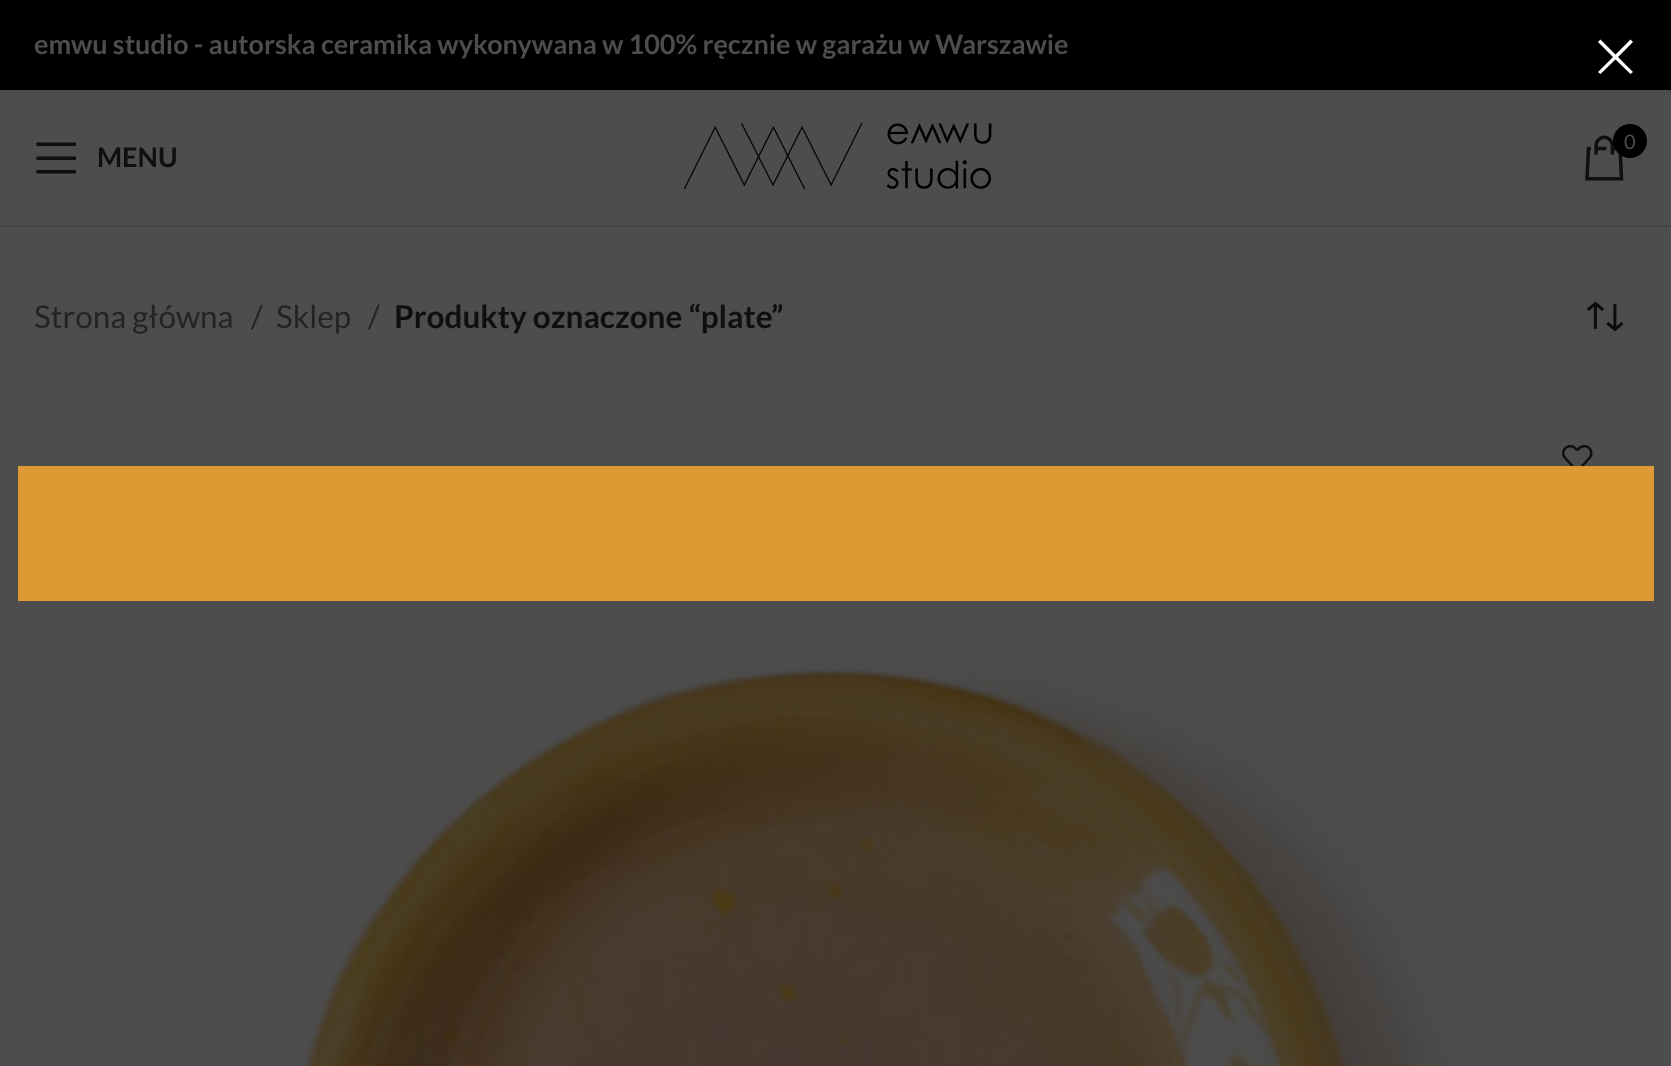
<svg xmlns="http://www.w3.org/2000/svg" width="1671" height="1066">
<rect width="100%" height="100%" fill="#4d4d4d"/>
<rect width="1671" height="90" fill="#000"/>
<text x="34" y="54" style="font-family:Lato;font-size:27px;font-weight:bold;fill:#4d4d4d">emwu studio - autorska ceramika wykonywana w 100% ręcznie w garażu w Warszawie</text>
<rect y="225" width="1671" height="2" fill="#454545"/>
<image x="684" y="122" width="308" height="68" href="media/1.png"/>
<image x="1585" y="135" width="39" height="46" href="media/2.png"/>
<circle cx="1630" cy="141" r="17" fill="#000"/>
<text x="1624" y="149" style="font-family:Lato;font-size:20px;fill:#4d4d4d">0</text>
<path d="M36.5 146h39.5v-3.5h-39.5zm0 14h39.5v-3.5h-39.5zm0 13.5h39.5v-3.5h-39.5z" fill="#0f0f0f"/>
<text x="97" y="167" style="font-family:Lato;font-size:27px;font-weight:bold;fill:#0f0f0f">MENU</text>
<text x="34" y="328" style="font-family:Lato;font-size:31.5px;fill:#242424">Strona główna</text>
<text x="251" y="328" style="font-family:Lato;font-size:31.5px;fill:#242424">/</text>
<text x="276" y="328" style="font-family:Lato;font-size:31.5px;fill:#242424">Sklep</text>
<text x="368" y="328" style="font-family:Lato;font-size:31.5px;fill:#242424">/</text>
<text x="394" y="328" style="font-family:Lato;font-size:31.5px;font-weight:bold;fill:#0f0f0f">Produkty oznaczone “plate”</text>
<image x="1586" y="301" width="38" height="31" href="media/3.png"/>
<image x="1562" y="444" width="31" height="22" href="media/4.png"/>
<image x="291" y="652" width="1163" height="414" href="media/5.png"/>
<rect x="18" y="466" width="1636" height="135" fill="#d93"/>
<path d="M1598 42l15 15l-15 15l2.5 2l15-14.5l15 14.5l2.5-2l-15-15l15-15l-2.5-2.5l-15 15l-15-15z" fill="#fff"/>
</svg>
